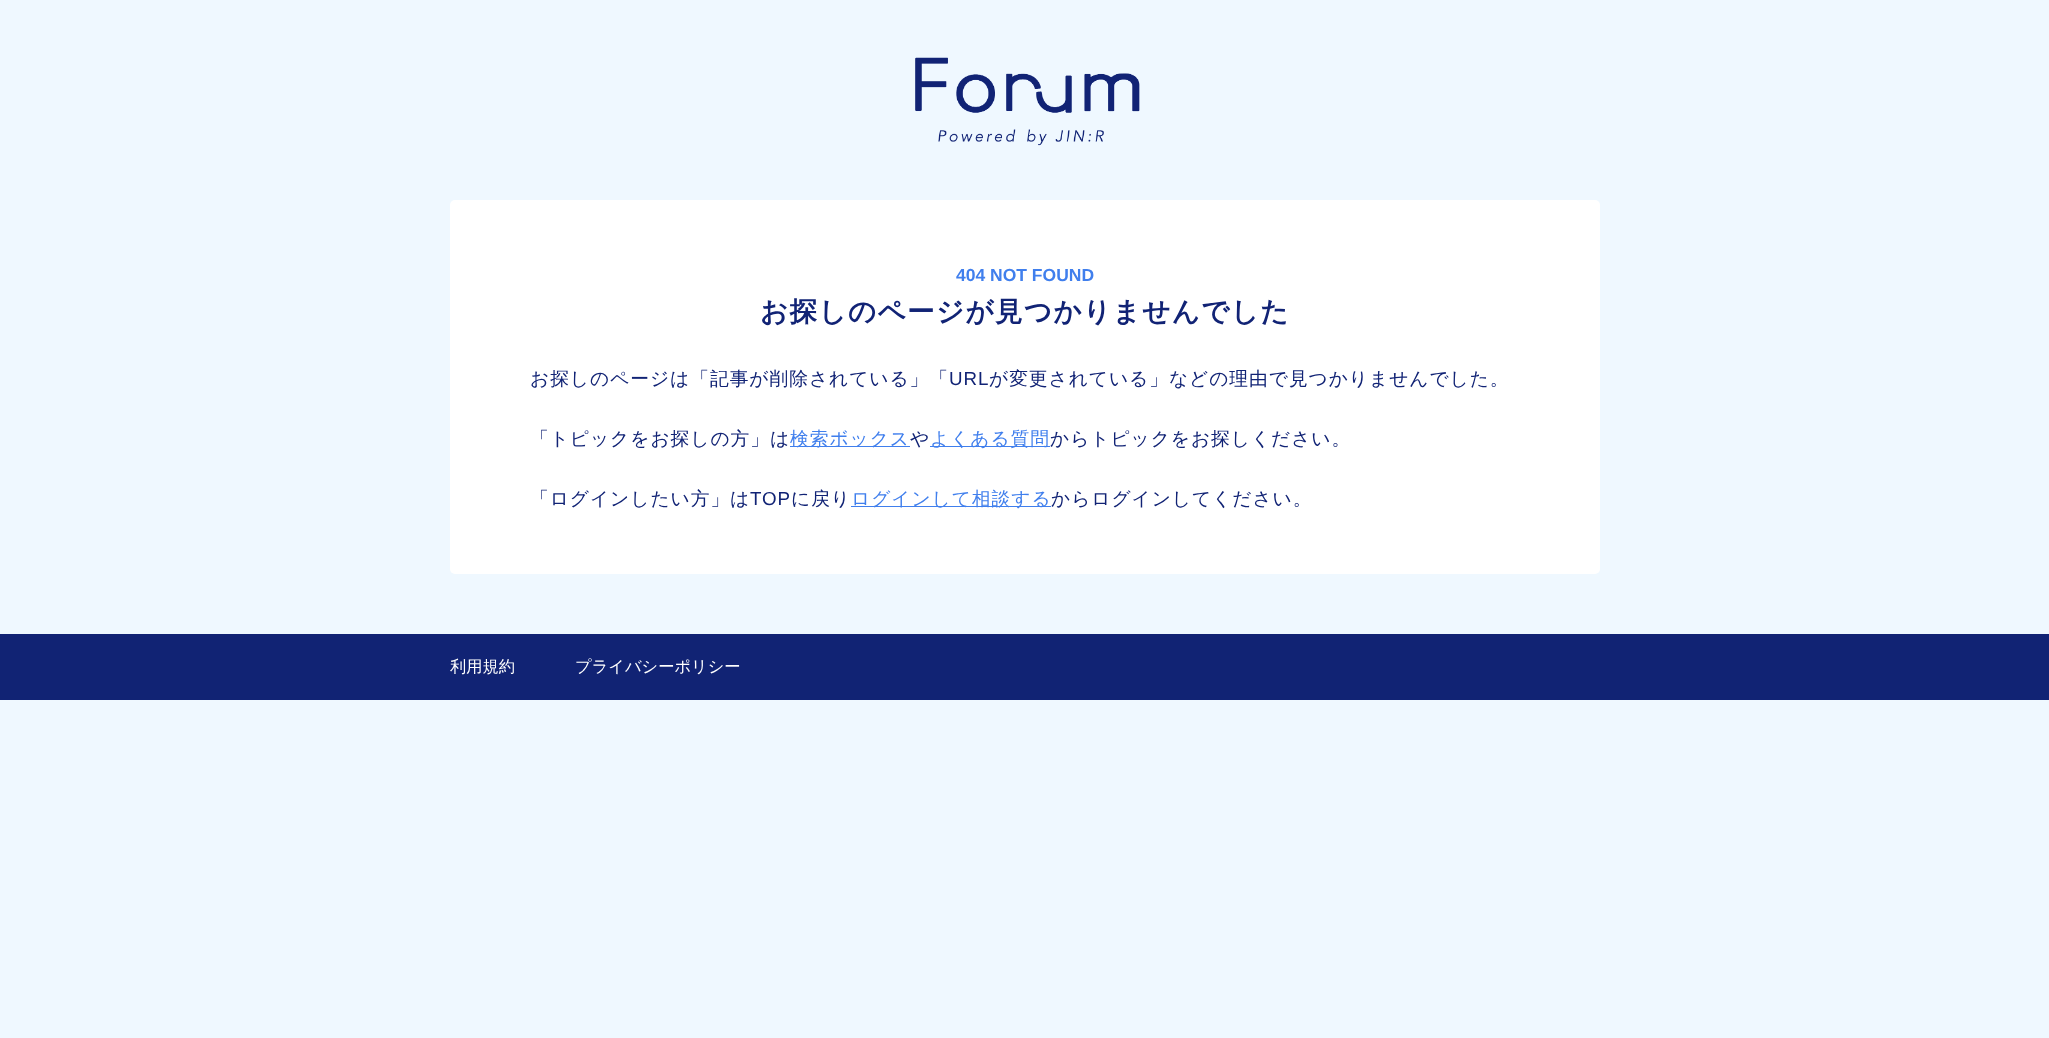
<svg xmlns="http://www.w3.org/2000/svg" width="2049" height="1038">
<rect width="100%" height="100%" fill="#eff8ff"/>
<image x="915" y="57" width="225" height="89" href="media/1.png"/>
<rect x="450" y="200" width="1150" height="374" rx="5" fill="#fff"/>
<text x="956" y="281" style="font-family:Liberation Sans;font-size:17.5px;font-weight:bold;fill:#407fed">404 NOT FOUND</text>
<text x="760" y="321" style="font-family:WenQuanYi Zen Hei;font-size:27.5px;font-weight:bold;letter-spacing:1.4px;fill:#112375">お探しのページが見つかりませんでした</text>
<text x="530" y="385" style="font-family:WenQuanYi Zen Hei;font-size:18.75px;font-weight:500;letter-spacing:0.95px;fill:#112375">お探しのページは「記事が削除されている」「</text>
<text x="949" y="385" style="font-family:Liberation Sans;font-size:18.75px;letter-spacing:0.95px;fill:#112375">URL</text>
<text x="989" y="385" style="font-family:WenQuanYi Zen Hei;font-size:18.75px;font-weight:500;letter-spacing:0.95px;fill:#112375">が変更されている」などの理由で見つかりませんでした。</text>
<text x="530" y="445" style="font-family:WenQuanYi Zen Hei;font-size:18.75px;font-weight:500;letter-spacing:0.95px;fill:#112375">「トピックをお探しの方」は</text>
<rect x="790" y="446" width="120" height="1" fill="#407fed"/>
<text x="790" y="445" style="font-family:WenQuanYi Zen Hei;font-size:18.75px;font-weight:500;letter-spacing:0.95px;fill:#407fed">検索ボックス</text>
<text x="910" y="445" style="font-family:WenQuanYi Zen Hei;font-size:18.75px;font-weight:500;letter-spacing:0.95px;fill:#112375">や</text>
<rect x="930" y="446" width="120" height="1" fill="#407fed"/>
<text x="930" y="445" style="font-family:WenQuanYi Zen Hei;font-size:18.75px;font-weight:500;letter-spacing:0.95px;fill:#407fed">よくある質問</text>
<text x="1050" y="445" style="font-family:WenQuanYi Zen Hei;font-size:18.75px;font-weight:500;letter-spacing:0.95px;fill:#112375">からトピックをお探しください。</text>
<text x="530" y="505" style="font-family:WenQuanYi Zen Hei;font-size:18.75px;font-weight:500;letter-spacing:0.95px;fill:#112375">「ログインしたい方」は</text>
<text x="750" y="505" style="font-family:Liberation Sans;font-size:18.75px;letter-spacing:0.95px;fill:#112375">TOP</text>
<text x="791" y="505" style="font-family:WenQuanYi Zen Hei;font-size:18.75px;font-weight:500;letter-spacing:0.95px;fill:#112375">に戻り</text>
<rect x="851" y="506" width="200" height="1" fill="#407fed"/>
<text x="851" y="505" style="font-family:WenQuanYi Zen Hei;font-size:18.75px;font-weight:500;letter-spacing:0.95px;fill:#407fed">ログインして相談する</text>
<text x="1051" y="505" style="font-family:WenQuanYi Zen Hei;font-size:18.75px;font-weight:500;letter-spacing:0.95px;fill:#112375">からログインしてください。</text>
<rect y="634" width="2049" height="66" fill="#112374"/>
<text x="450" y="672" style="font-family:WenQuanYi Zen Hei;font-size:16.25px;font-weight:500;fill:#fff">利用規約</text>
<text x="575" y="672" style="font-family:WenQuanYi Zen Hei;font-size:16.25px;font-weight:500;fill:#fff">プライバシーポリシー</text>
</svg>
